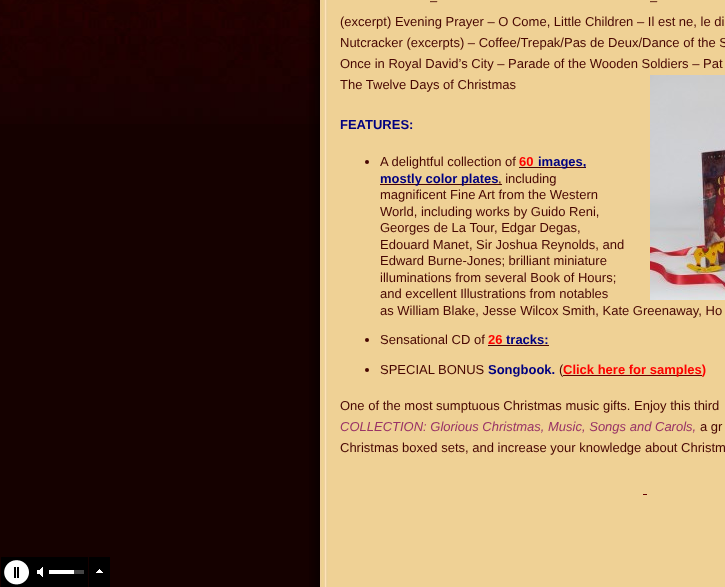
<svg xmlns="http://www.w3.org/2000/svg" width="725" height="587">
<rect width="100%" height="100%" fill="#150100"/>
<image x="0" y="0" width="320" height="124" href="media/1.png"/>
<image x="309" y="0" width="11" height="587" href="media/2.png"/>
<rect x="328" width="397" height="587" fill="#efd195"/>
<image x="320" y="0" width="8" height="587" href="media/3.png"/>
<text x="430" y="5" style="font-family:Liberation Sans;font-size:13px;fill:#470602">–</text>
<text x="650" y="5" style="font-family:Liberation Sans;font-size:13px;fill:#470602">–</text>
<text x="340" y="26" style="font-family:Liberation Sans;font-size:13px;fill:#470602">(excerpt) Evening Prayer – O Come, Little Children – Il est ne, le di</text>
<text x="340" y="47" style="font-family:Liberation Sans;font-size:13px;fill:#470602">Nutcracker (excerpts) – Coffee/Trepak/Pas de Deux/Dance of the S</text>
<text x="340" y="68" style="font-family:Liberation Sans;font-size:13px;fill:#470602">Once in Royal David’s City – Parade of the Wooden Soldiers – Pat</text>
<text x="340" y="89" style="font-family:Liberation Sans;font-size:13px;fill:#470602">The Twelve Days of Christmas</text>
<image x="650" y="75" width="75" height="225" href="media/4.png"/>
<text x="340" y="129" style="font-family:Liberation Sans;font-size:13px;font-weight:bold;fill:#000080">FEATURES:</text>
<circle cx="367" cy="162" r="2" fill="#470602"/>
<text x="380" y="166" style="font-family:Liberation Sans;font-size:13px;fill:#470602">A delightful collection of</text>
<text x="519" y="166" style="font-family:Liberation Sans;font-size:13px;font-weight:bold;fill:#f00">60</text>
<rect x="519" y="167" width="67" height="1" fill="#470602"/>
<text x="538" y="166" style="font-family:Liberation Sans;font-size:13px;font-weight:bold;fill:#000080">images,</text>
<rect x="380" y="184" width="122" height="1" fill="#470602"/>
<text x="380" y="183" style="font-family:Liberation Sans;font-size:13px;font-weight:bold;fill:#000080">mostly color plates</text>
<text x="498" y="183" style="font-family:Liberation Sans;font-size:13px;fill:#470602">, including</text>
<text x="380" y="199" style="font-family:Liberation Sans;font-size:13px;fill:#470602">magnificent Fine Art from the Western</text>
<text x="380" y="216" style="font-family:Liberation Sans;font-size:13px;fill:#470602">World, including works by Guido Reni,</text>
<text x="380" y="232" style="font-family:Liberation Sans;font-size:13px;fill:#470602">Georges de La Tour, Edgar Degas,</text>
<text x="380" y="249" style="font-family:Liberation Sans;font-size:13px;fill:#470602">Edouard Manet, Sir Joshua Reynolds, and</text>
<text x="380" y="265" style="font-family:Liberation Sans;font-size:13px;fill:#470602">Edward Burne-Jones; brilliant miniature</text>
<text x="380" y="282" style="font-family:Liberation Sans;font-size:13px;fill:#470602">illuminations from several Book of Hours;</text>
<text x="380" y="298" style="font-family:Liberation Sans;font-size:13px;fill:#470602">and excellent Illustrations from notables</text>
<text x="380" y="315" style="font-family:Liberation Sans;font-size:13px;fill:#470602">as William Blake, Jesse Wilcox Smith, Kate Greenaway, Ho</text>
<circle cx="367" cy="340" r="2" fill="#470602"/>
<text x="380" y="344" style="font-family:Liberation Sans;font-size:13px;fill:#470602">Sensational CD of</text>
<text x="488" y="344" style="font-family:Liberation Sans;font-size:13px;font-weight:bold;fill:#f00">26</text>
<rect x="488" y="345" width="61" height="1" fill="#470602"/>
<text x="506" y="344" style="font-family:Liberation Sans;font-size:13px;font-weight:bold;fill:#000080">tracks:</text>
<circle cx="367" cy="370" r="2" fill="#470602"/>
<text x="380" y="374" style="font-family:Liberation Sans;font-size:13px;fill:#470602">SPECIAL BONUS</text>
<text x="488" y="374" style="font-family:Liberation Sans;font-size:13px;font-weight:bold;fill:#000080">Songbook.</text>
<text x="559" y="374" style="font-family:Liberation Sans;font-size:13px;fill:#470602">(</text>
<rect x="563" y="375" width="139" height="1" fill="#600"/>
<text x="563" y="374" style="font-family:Liberation Sans;font-size:13px;font-weight:bold;fill:#f00">Click here for samples)</text>
<text x="340" y="410" style="font-family:Liberation Sans;font-size:13px;fill:#470602">One of the most sumptuous Christmas music gifts. Enjoy this third</text>
<text x="340" y="431" style="font-family:Liberation Sans;font-size:13px;font-style:italic;fill:#936">COLLECTION: Glorious Christmas, Music, Songs and Carols,</text>
<text x="700" y="431" style="font-family:Liberation Sans;font-size:13px;fill:#470602">a gr</text>
<text x="340" y="452" style="font-family:Liberation Sans;font-size:13px;fill:#470602">Christmas boxed sets, and increase your knowledge about Christm</text>
<rect x="643" y="494" width="4" height="1" fill="#600"/>
<rect x="1" y="557" width="87" height="30" fill="#000"/>
<image x="4" y="560" width="25" height="25" href="media/5.png"/>
<image x="37" y="567" width="6" height="10" href="media/6.png"/>
<rect x="74" y="570" width="10" height="4" fill="#454545"/>
<rect x="49" y="570" width="25" height="4" fill="#fff"/>
<rect x="89" y="557" width="21" height="30" fill="#000"/>
<image x="96" y="569" width="7" height="4" href="media/7.png"/>
</svg>
